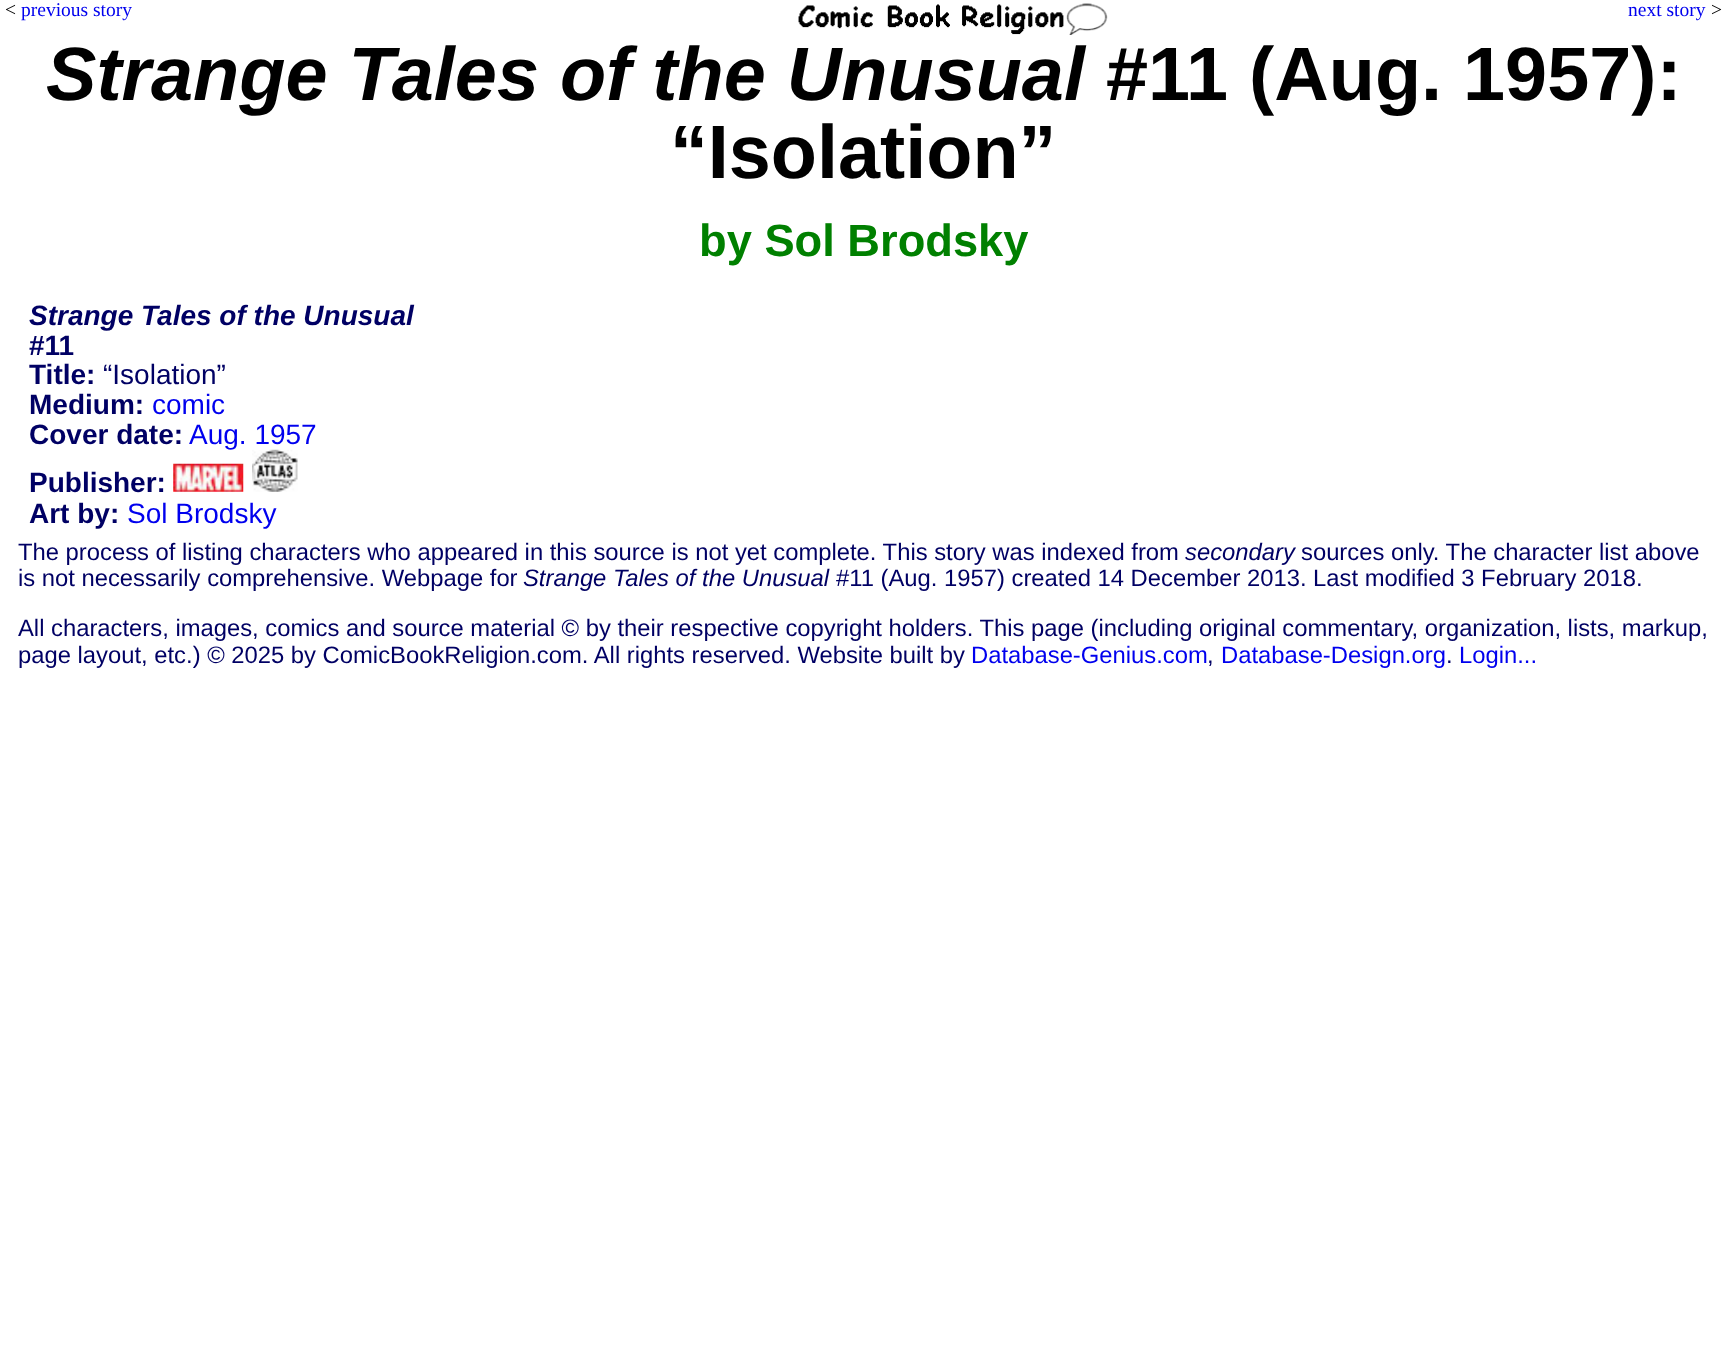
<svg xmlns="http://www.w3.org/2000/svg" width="1727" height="1350">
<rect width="100%" height="100%" fill="#fff"/>
<text x="5" y="16" style="font-family:Liberation Serif;font-size:19.5px;fill:#000">&lt;</text>
<text x="21" y="16" style="font-family:Liberation Serif;font-size:19.5px;fill:#00e">previous story</text>
<image x="798" y="3" width="310" height="32" href="media/1.png"/>
<text x="1628" y="16" style="font-family:Liberation Serif;font-size:19.5px;fill:#00e">next story</text>
<text x="1711" y="16" style="font-family:Liberation Serif;font-size:19.5px;fill:#000">&gt;</text>
<text x="46" y="100" style="font-family:Liberation Sans;font-size:75.6px;font-weight:bold;font-style:italic;fill:#000">Strange Tales of the Unusual</text>
<text x="1106" y="100" style="font-family:Liberation Sans;font-size:75.6px;font-weight:bold;fill:#000">#11 (Aug. 1957):</text>
<text x="670" y="178" style="font-family:Liberation Sans;font-size:75.6px;font-weight:bold;fill:#000">“Isolation”</text>
<text x="699" y="256" style="font-family:Liberation Sans;font-size:45.25px;font-weight:bold;fill:#008000">by Sol Brodsky</text>
<text x="29" y="325" style="font-family:Liberation Sans;font-size:28px;font-weight:bold;font-style:italic;fill:#000064">Strange Tales of the Unusual</text>
<text x="29" y="355" style="font-family:Liberation Sans;font-size:28px;font-weight:bold;fill:#000064">#11</text>
<text x="29" y="384" style="font-family:Liberation Sans;font-size:28px;font-weight:bold;fill:#000064">Title:</text>
<text x="103" y="384" style="font-family:Liberation Sans;font-size:28px;fill:#000064">“Isolation”</text>
<text x="29" y="414" style="font-family:Liberation Sans;font-size:28px;font-weight:bold;fill:#000064">Medium:</text>
<text x="152" y="414" style="font-family:Liberation Sans;font-size:28px;fill:#00e">comic</text>
<text x="29" y="444" style="font-family:Liberation Sans;font-size:28px;font-weight:bold;fill:#000064">Cover date:</text>
<text x="189" y="444" style="font-family:Liberation Sans;font-size:28px;fill:#00e">Aug. 1957</text>
<text x="29" y="492" style="font-family:Liberation Sans;font-size:28px;font-weight:bold;fill:#000064">Publisher:</text>
<image x="173" y="463" width="71" height="29" href="media/2.png"/>
<image x="252" y="449" width="46" height="43" href="media/3.png"/>
<text x="29" y="523" style="font-family:Liberation Sans;font-size:28px;font-weight:bold;fill:#000064">Art by:</text>
<text x="127" y="523" style="font-family:Liberation Sans;font-size:28px;fill:#00e">Sol Brodsky</text>
<text x="18" y="560" style="font-family:Liberation Sans;font-size:23.8px;fill:#000064">The process of listing characters who appeared in this source is not yet complete. This story was indexed from</text>
<text x="1185" y="560" style="font-family:Liberation Sans;font-size:23.8px;font-style:italic;fill:#000064">secondary</text>
<text x="1301" y="560" style="font-family:Liberation Sans;font-size:23.8px;fill:#000064">sources only. The character list above</text>
<text x="18" y="586" style="font-family:Liberation Sans;font-size:23.8px;fill:#000064">is not necessarily comprehensive. Webpage for</text>
<text x="523" y="586" style="font-family:Liberation Sans;font-size:23.8px;font-style:italic;fill:#000064">Strange Tales of the Unusual</text>
<text x="836" y="586" style="font-family:Liberation Sans;font-size:23.8px;fill:#000064">#11 (Aug. 1957) created 14 December 2013. Last modified 3 February 2018.</text>
<text x="18" y="636" style="font-family:Liberation Sans;font-size:23.8px;fill:#000064">All characters, images, comics and source material © by their respective copyright holders. This page (including original commentary, organization, lists, markup,</text>
<text x="18" y="663" style="font-family:Liberation Sans;font-size:23.8px;fill:#000064">page layout, etc.) © 2025 by ComicBookReligion.com. All rights reserved. Website built by</text>
<text x="971" y="663" style="font-family:Liberation Sans;font-size:23.8px;fill:#00e">Database-Genius.com</text>
<text x="1207" y="663" style="font-family:Liberation Sans;font-size:23.8px;fill:#000064">,</text>
<text x="1221" y="663" style="font-family:Liberation Sans;font-size:23.8px;fill:#00e">Database-Design.org</text>
<text x="1446" y="663" style="font-family:Liberation Sans;font-size:23.8px;fill:#000064">.</text>
<text x="1459" y="663" style="font-family:Liberation Sans;font-size:23.8px;fill:#00e">Login...</text>
</svg>
